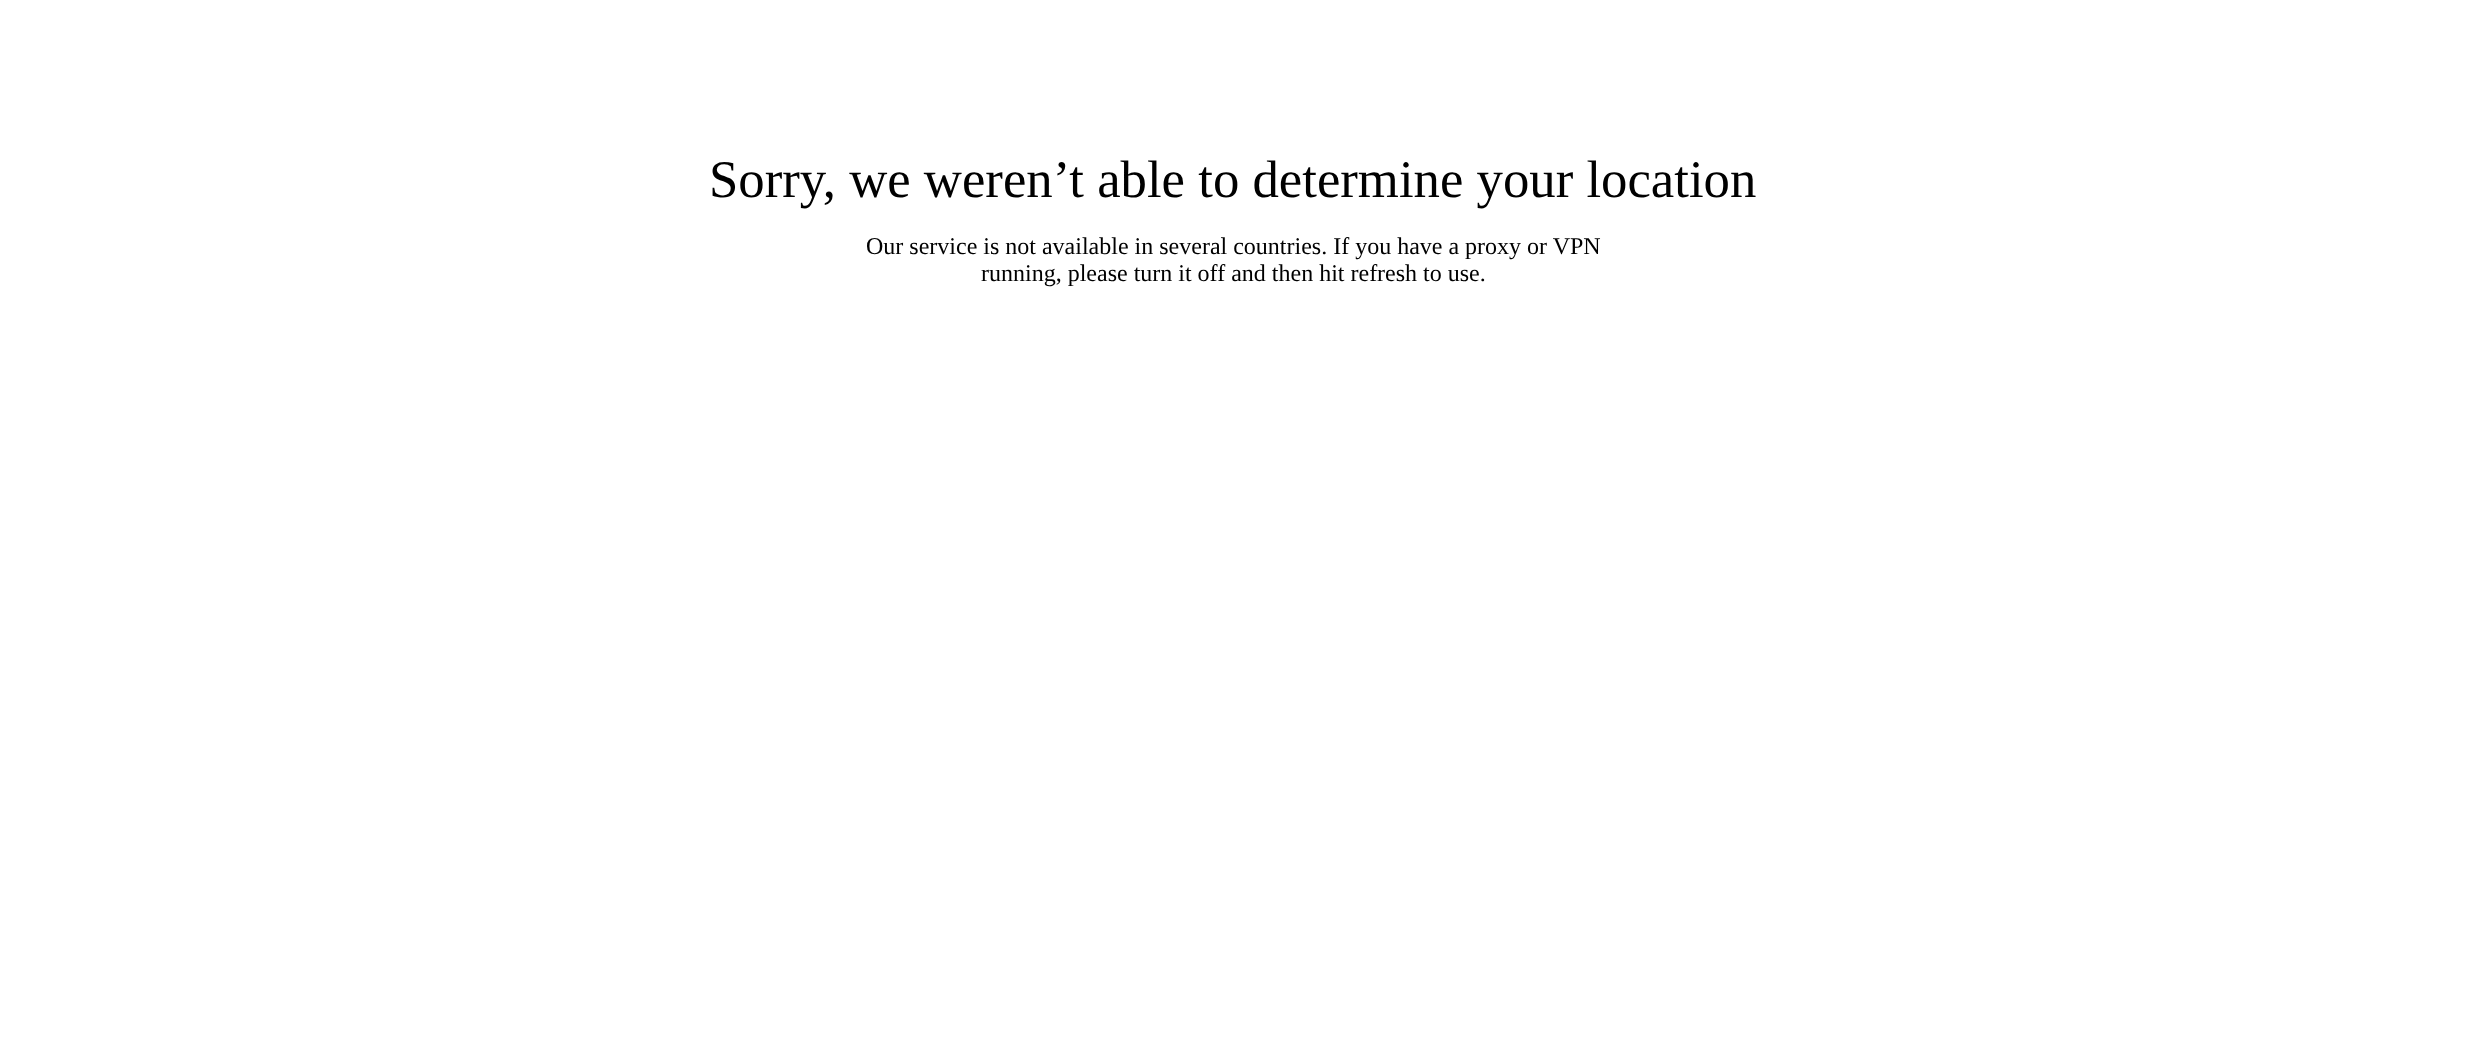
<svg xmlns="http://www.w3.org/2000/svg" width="2466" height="1055">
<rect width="100%" height="100%" fill="#fff"/>
<text x="709" y="197" style="font-family:Liberation Serif;font-size:52.75px;fill:#000">Sorry, we weren’t able to determine your location</text>
<text x="866" y="254" style="font-family:Liberation Serif;font-size:24px;fill:#000">Our service is not available in several countries. If you have a proxy or VPN</text>
<text x="981" y="281" style="font-family:Liberation Serif;font-size:24px;fill:#000">running, please turn it off and then hit refresh to use.</text>
</svg>
